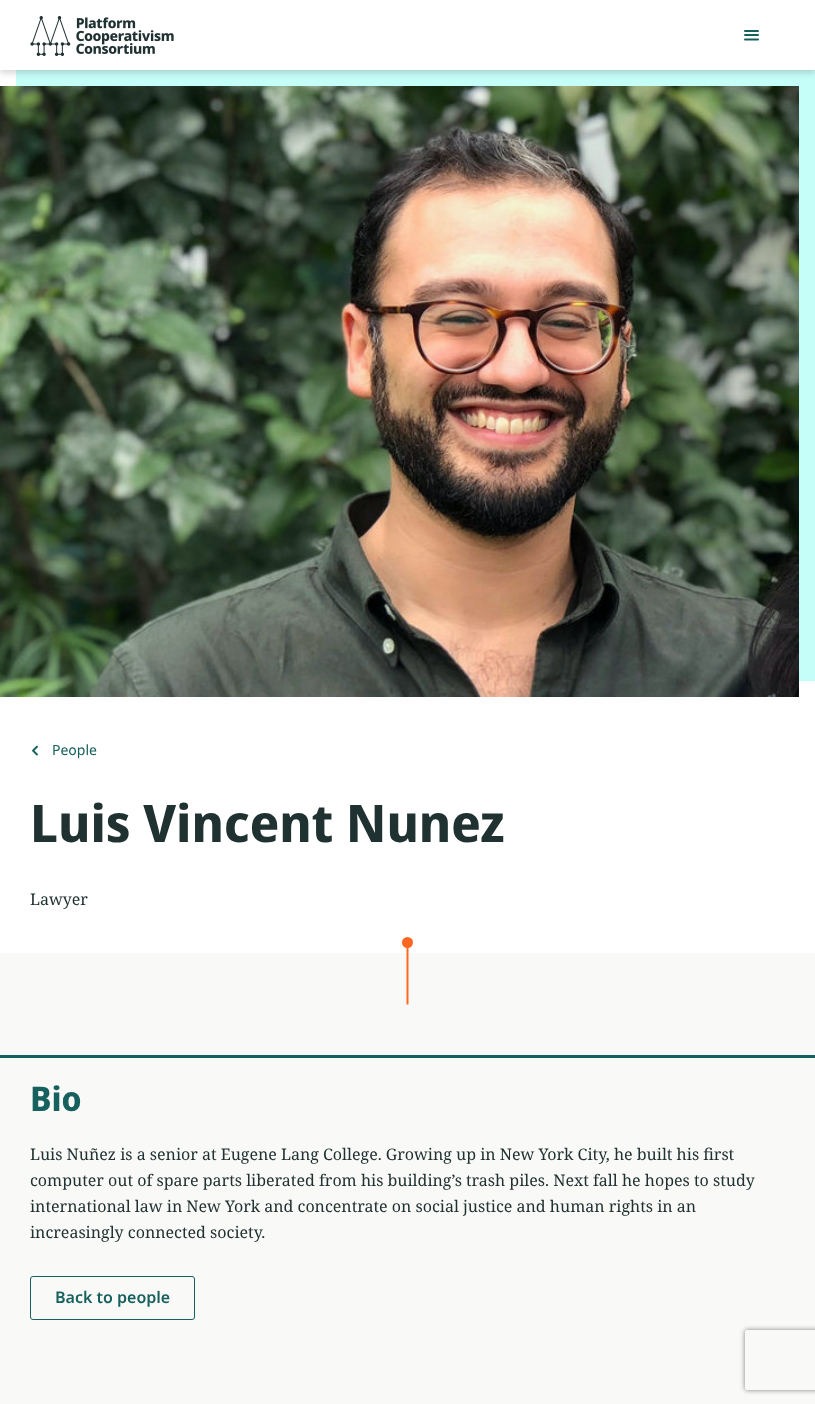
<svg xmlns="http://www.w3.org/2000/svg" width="815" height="1404">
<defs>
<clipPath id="clip1"><path d="M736 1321h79v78h-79zm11 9h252c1 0 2 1 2 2v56c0 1-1 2-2 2h-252c-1 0-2-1-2-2v-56c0-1 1-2 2-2z" clip-rule="evenodd"/></clipPath>
</defs>
<rect width="100%" height="100%" fill="#fff"/>
<path d="M16 70v16h783v595h16v-611z" fill="#c5fdf9"/>
<rect y="3" width="815" height="70" fill="#00000029" filter="blur(3px)"/>
<rect width="815" height="70" fill="#fff"/>
<image x="30" y="16" width="144" height="40" href="media/1.png"/>
<path d="M745 31h13m-13 4h13m-13 4.5h13" fill="none" stroke="#16605d" stroke-width="2" stroke-linecap="round"/>
<image x="0" y="86" width="799" height="611" href="media/2.png"/>
<image x="32" y="745" width="6" height="11" href="media/3.png"/>
<text x="52" y="755" style="font-family:Noto Sans;font-size:14px;fill:#16605d">People</text>
<text x="30" y="842" style="font-family:Noto Sans Display;font-size:52px;font-weight:bold;fill:#203131">Luis Vincent Nunez</text>
<text x="30" y="905" style="font-family:Noto Serif;font-size:16px;fill:#203131">Lawyer</text>
<rect y="953" width="815" height="451" fill="#f9f9f7"/>
<path d="M407.5 941.5v63" fill="none" stroke="#fc6822" stroke-width="2"/>
<circle cx="407.5" cy="942.5" r="5.5" fill="#fc6822"/>
<rect y="1055" width="815" height="3" fill="#16605d"/>
<text x="30" y="1111" style="font-family:Noto Sans Display;font-size:34px;font-weight:bold;fill:#16605d">Bio</text>
<text x="30" y="1160" style="font-family:Noto Serif;font-size:16px;fill:#203131">Luis Nuñez is a senior at Eugene Lang College. Growing up in New York City, he built his first</text>
<text x="30" y="1186" style="font-family:Noto Serif;font-size:16px;fill:#203131">computer out of spare parts liberated from his building’s trash piles. Next fall he hopes to study</text>
<text x="30" y="1212" style="font-family:Noto Serif;font-size:16px;fill:#203131">international law in New York and concentrate on social justice and human rights in an</text>
<text x="30" y="1238" style="font-family:Noto Serif;font-size:16px;fill:#203131">increasingly connected society.</text>
<rect x="30.5" y="1276.5" width="164" height="43" rx="2.5" fill="none" stroke="#16605d"/>
<text x="55" y="1303" style="font-family:Noto Sans;font-size:16px;font-weight:600;fill:#16605d">Back to people</text>
<g clip-path="url(#clip1)">
<rect x="745" y="1330" width="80" height="60" rx="2" fill="#808080" filter="blur(2.5px)"/>
</g>
</svg>
